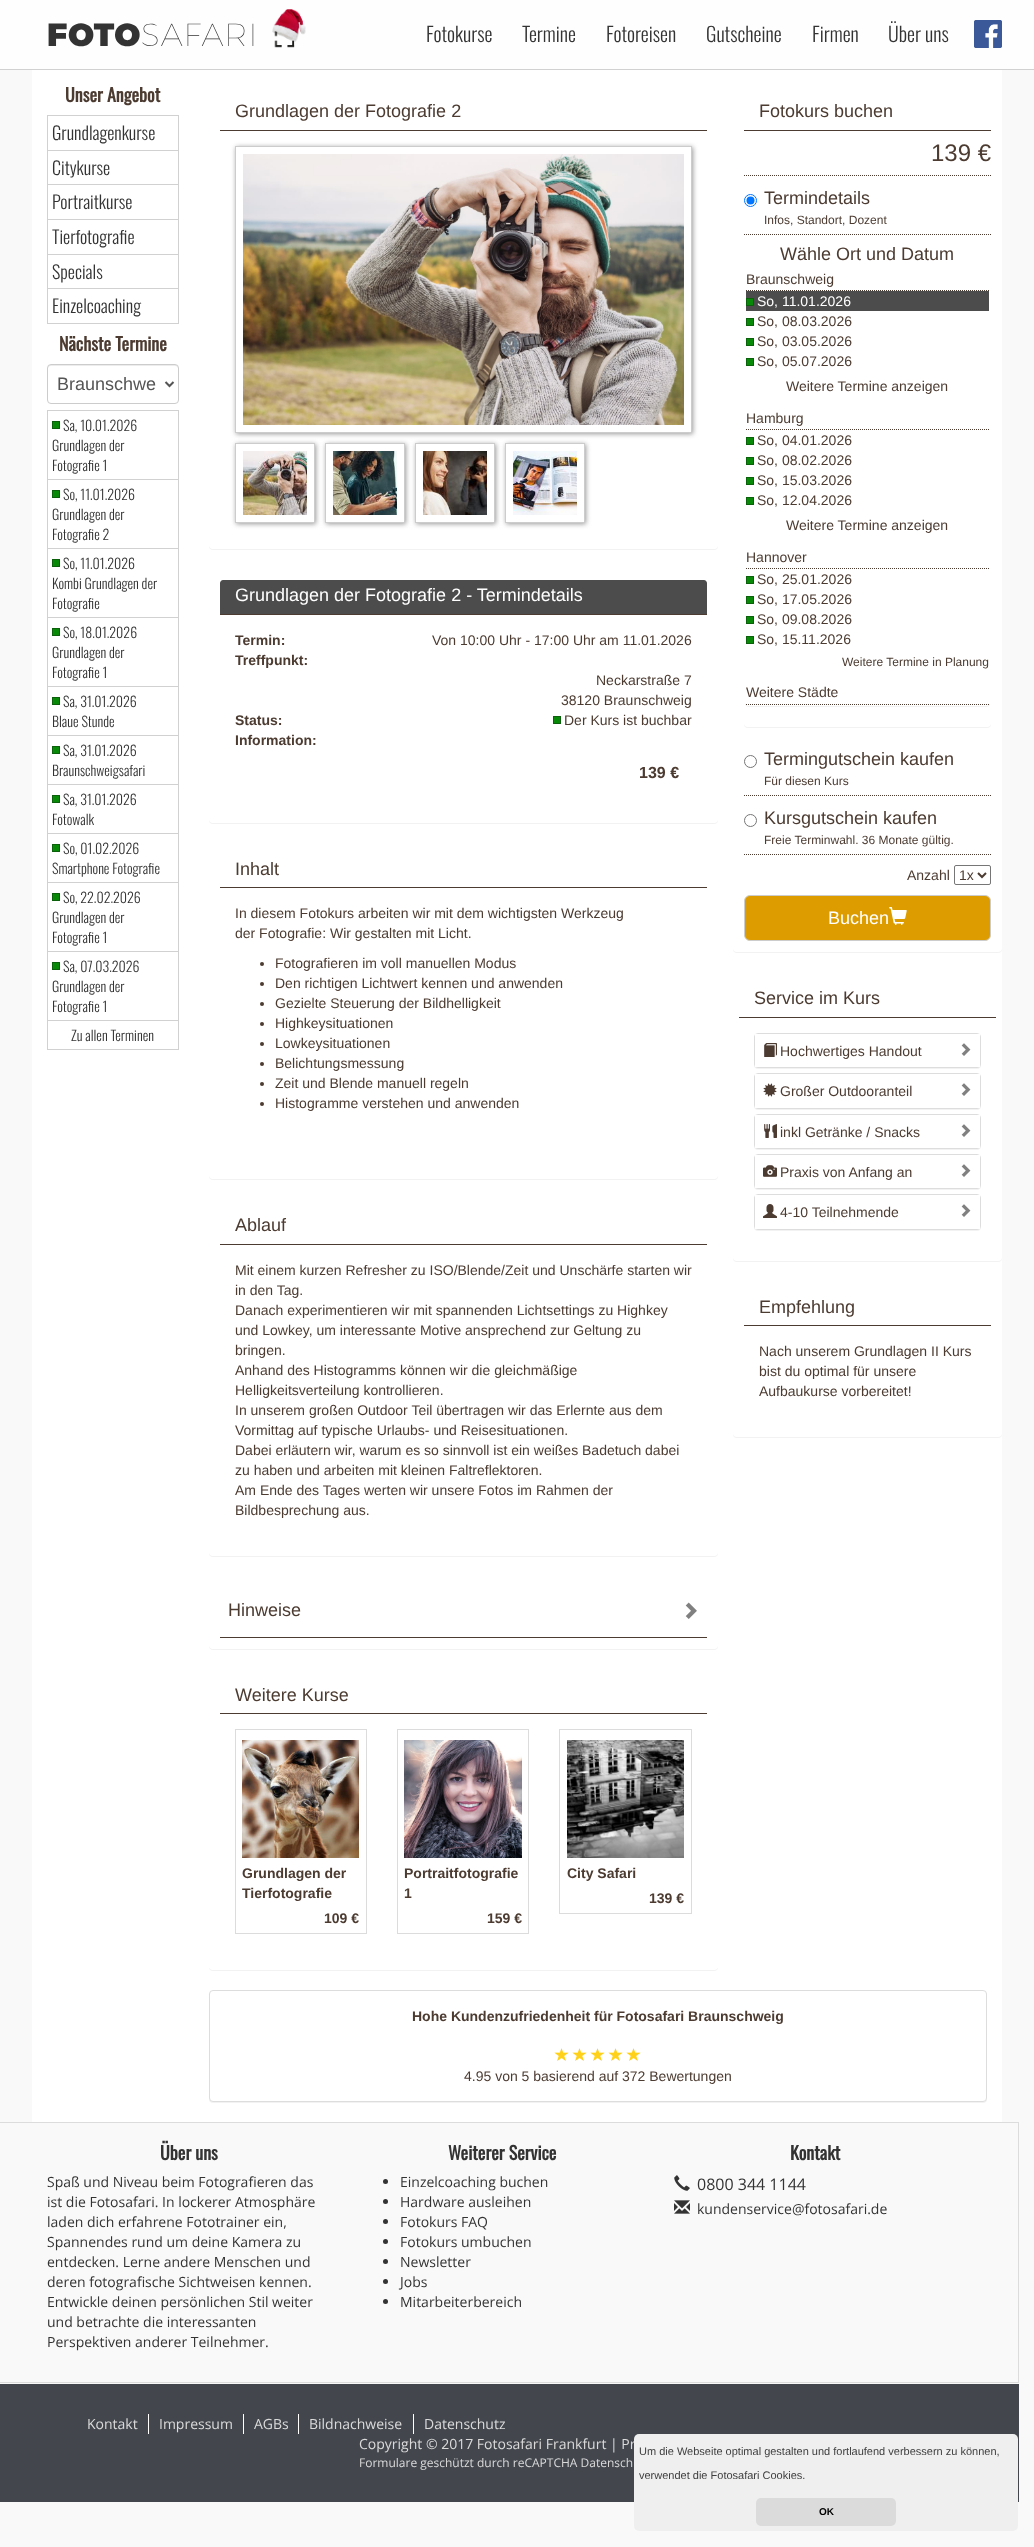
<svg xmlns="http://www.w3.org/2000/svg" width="1034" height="2547">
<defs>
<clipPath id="clip1"><path d="M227 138h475v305h-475zm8 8h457v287h-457z" clip-rule="evenodd"/></clipPath>
<clipPath id="clip2"><path d="M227 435h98v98h-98zm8 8h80v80h-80z" clip-rule="evenodd"/></clipPath>
<clipPath id="clip3"><path d="M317 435h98v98h-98zm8 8h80v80h-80z" clip-rule="evenodd"/></clipPath>
<clipPath id="clip4"><path d="M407 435h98v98h-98zm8 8h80v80h-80z" clip-rule="evenodd"/></clipPath>
<clipPath id="clip5"><path d="M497 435h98v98h-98zm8 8h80v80h-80z" clip-rule="evenodd"/></clipPath>
</defs>
<rect width="100%" height="100%" fill="#f9f9f9"/>
<rect width="1034" height="69" fill="#fefefe"/>
<rect y="69" width="1034" height="1" fill="#d1d1d1"/>
<text x="47" y="46" style="font-family:Montserrat;font-size:32px;font-weight:900;letter-spacing:1px;fill:#333">FOTO</text>
<text x="141" y="46" style="font-family:Montserrat;font-size:32px;font-weight:100;letter-spacing:1px;fill:#333">SAFARI</text>
<image x="272" y="9" width="34" height="39" href="media/1.png"/>
<text x="426" y="42" style="font-family:Oswald;font-size:20px;font-weight:300;fill:#333">Fotokurse</text>
<text x="522" y="42" style="font-family:Oswald;font-size:20px;font-weight:300;fill:#333">Termine</text>
<text x="606" y="42" style="font-family:Oswald;font-size:20px;font-weight:300;fill:#333">Fotoreisen</text>
<text x="706" y="42" style="font-family:Oswald;font-size:20px;font-weight:300;fill:#333">Gutscheine</text>
<text x="812" y="42" style="font-family:Oswald;font-size:20px;font-weight:300;fill:#333">Firmen</text>
<text x="888" y="42" style="font-family:Oswald;font-size:20px;font-weight:300;fill:#333">Über uns</text>
<image x="974" y="20" width="28" height="28" href="media/2.png"/>
<rect x="32" y="70" width="970" height="2052" fill="#fff"/>
<text x="65" y="102" style="font-family:Oswald;font-size:18px;font-weight:bold;fill:#4c3b31">Unser Angebot</text>
<rect x="47" y="323" width="132" height="1" fill="#d1d1d1"/>
<rect x="47" y="115" width="132" height="1" fill="#d1d1d1"/>
<rect x="178" y="115" width="1" height="35" fill="#d1d1d1"/>
<rect x="47" y="115" width="1" height="35" fill="#d1d1d1"/>
<text x="52" y="140" style="font-family:Oswald;font-size:18px;font-weight:300;fill:#333">Grundlagenkurse</text>
<rect x="47" y="150" width="132" height="1" fill="#d1d1d1"/>
<rect x="178" y="150" width="1" height="34" fill="#d1d1d1"/>
<rect x="47" y="150" width="1" height="34" fill="#d1d1d1"/>
<text x="52" y="175" style="font-family:Oswald;font-size:18px;font-weight:300;fill:#333">Citykurse</text>
<rect x="47" y="184" width="132" height="1" fill="#d1d1d1"/>
<rect x="178" y="184" width="1" height="35" fill="#d1d1d1"/>
<rect x="47" y="184" width="1" height="35" fill="#d1d1d1"/>
<text x="52" y="209" style="font-family:Oswald;font-size:18px;font-weight:300;fill:#333">Portraitkurse</text>
<rect x="47" y="219" width="132" height="1" fill="#d1d1d1"/>
<rect x="178" y="219" width="1" height="35" fill="#d1d1d1"/>
<rect x="47" y="219" width="1" height="35" fill="#d1d1d1"/>
<text x="52" y="244" style="font-family:Oswald;font-size:18px;font-weight:300;fill:#333">Tierfotografie</text>
<rect x="47" y="254" width="132" height="1" fill="#d1d1d1"/>
<rect x="178" y="254" width="1" height="34" fill="#d1d1d1"/>
<rect x="47" y="254" width="1" height="34" fill="#d1d1d1"/>
<text x="52" y="279" style="font-family:Oswald;font-size:18px;font-weight:300;fill:#333">Specials</text>
<rect x="47" y="288" width="132" height="1" fill="#d1d1d1"/>
<rect x="178" y="288" width="1" height="35" fill="#d1d1d1"/>
<rect x="47" y="288" width="1" height="35" fill="#d1d1d1"/>
<text x="52" y="313" style="font-family:Oswald;font-size:18px;font-weight:300;fill:#333">Einzelcoaching</text>
<text x="59" y="351" style="font-family:Oswald;font-size:18px;font-weight:bold;fill:#4c3b31">Nächste Termine</text>
<path d="M51 366h124c2 0 3 1 3 3c0-2 0-4-2-4h-126c-2 0-2 2-2 4c0-2 1-3 3-3z" fill="#ececec"/>
<rect x="47.5" y="364.5" width="131" height="39" rx="3.5" fill="none" stroke="#ccc"/>
<path d="M165.5 382l4 4l4-4" fill="none" stroke="#555" stroke-width="2"/>
<text x="57" y="390" style="font-family:Liberation Sans;font-size:18px;fill:#555">Braunschwe</text>
<rect x="47" y="1049" width="132" height="1" fill="#d1d1d1"/>
<rect x="47" y="410" width="132" height="1" fill="#d1d1d1"/>
<rect x="178" y="410" width="1" height="69" fill="#d1d1d1"/>
<rect x="47" y="410" width="1" height="69" fill="#d1d1d1"/>
<text x="63" y="431" style="font-family:Oswald;font-size:14px;font-weight:300;fill:#333">Sa, 10.01.2026</text>
<text x="52" y="451" style="font-family:Oswald;font-size:14px;font-weight:300;fill:#333">Grundlagen der</text>
<text x="52" y="471" style="font-family:Oswald;font-size:14px;font-weight:300;fill:#333">Fotografie 1</text>
<rect x="52.5" y="421.5" width="7" height="7" fill="#088a08" stroke="#0b610b"/>
<rect x="47" y="479" width="132" height="1" fill="#d1d1d1"/>
<rect x="178" y="479" width="1" height="69" fill="#d1d1d1"/>
<rect x="47" y="479" width="1" height="69" fill="#d1d1d1"/>
<text x="63" y="500" style="font-family:Oswald;font-size:14px;font-weight:300;fill:#333">So, 11.01.2026</text>
<text x="52" y="520" style="font-family:Oswald;font-size:14px;font-weight:300;fill:#333">Grundlagen der</text>
<text x="52" y="540" style="font-family:Oswald;font-size:14px;font-weight:300;fill:#333">Fotografie 2</text>
<rect x="52.5" y="490.5" width="7" height="7" fill="#088a08" stroke="#0b610b"/>
<rect x="47" y="548" width="132" height="1" fill="#d1d1d1"/>
<rect x="178" y="548" width="1" height="69" fill="#d1d1d1"/>
<rect x="47" y="548" width="1" height="69" fill="#d1d1d1"/>
<text x="63" y="569" style="font-family:Oswald;font-size:14px;font-weight:300;fill:#333">So, 11.01.2026</text>
<text x="52" y="589" style="font-family:Oswald;font-size:14px;font-weight:300;fill:#333">Kombi Grundlagen der</text>
<text x="52" y="609" style="font-family:Oswald;font-size:14px;font-weight:300;fill:#333">Fotografie</text>
<rect x="52.5" y="559.5" width="7" height="7" fill="#088a08" stroke="#0b610b"/>
<rect x="47" y="617" width="132" height="1" fill="#d1d1d1"/>
<rect x="178" y="617" width="1" height="69" fill="#d1d1d1"/>
<rect x="47" y="617" width="1" height="69" fill="#d1d1d1"/>
<text x="63" y="638" style="font-family:Oswald;font-size:14px;font-weight:300;fill:#333">So, 18.01.2026</text>
<text x="52" y="658" style="font-family:Oswald;font-size:14px;font-weight:300;fill:#333">Grundlagen der</text>
<text x="52" y="678" style="font-family:Oswald;font-size:14px;font-weight:300;fill:#333">Fotografie 1</text>
<rect x="52.5" y="628.5" width="7" height="7" fill="#088a08" stroke="#0b610b"/>
<rect x="47" y="686" width="132" height="1" fill="#d1d1d1"/>
<rect x="178" y="686" width="1" height="49" fill="#d1d1d1"/>
<rect x="47" y="686" width="1" height="49" fill="#d1d1d1"/>
<text x="63" y="707" style="font-family:Oswald;font-size:14px;font-weight:300;fill:#333">Sa, 31.01.2026</text>
<text x="52" y="727" style="font-family:Oswald;font-size:14px;font-weight:300;fill:#333">Blaue Stunde</text>
<rect x="52.5" y="697.5" width="7" height="7" fill="#088a08" stroke="#0b610b"/>
<rect x="47" y="735" width="132" height="1" fill="#d1d1d1"/>
<rect x="178" y="735" width="1" height="49" fill="#d1d1d1"/>
<rect x="47" y="735" width="1" height="49" fill="#d1d1d1"/>
<text x="63" y="756" style="font-family:Oswald;font-size:14px;font-weight:300;fill:#333">Sa, 31.01.2026</text>
<text x="52" y="776" style="font-family:Oswald;font-size:14px;font-weight:300;fill:#333">Braunschweigsafari</text>
<rect x="52.5" y="746.5" width="7" height="7" fill="#088a08" stroke="#0b610b"/>
<rect x="47" y="784" width="132" height="1" fill="#d1d1d1"/>
<rect x="178" y="784" width="1" height="49" fill="#d1d1d1"/>
<rect x="47" y="784" width="1" height="49" fill="#d1d1d1"/>
<text x="63" y="805" style="font-family:Oswald;font-size:14px;font-weight:300;fill:#333">Sa, 31.01.2026</text>
<text x="52" y="825" style="font-family:Oswald;font-size:14px;font-weight:300;fill:#333">Fotowalk</text>
<rect x="52.5" y="795.5" width="7" height="7" fill="#088a08" stroke="#0b610b"/>
<rect x="47" y="833" width="132" height="1" fill="#d1d1d1"/>
<rect x="178" y="833" width="1" height="49" fill="#d1d1d1"/>
<rect x="47" y="833" width="1" height="49" fill="#d1d1d1"/>
<text x="63" y="854" style="font-family:Oswald;font-size:14px;font-weight:300;fill:#333">So, 01.02.2026</text>
<text x="52" y="874" style="font-family:Oswald;font-size:14px;font-weight:300;fill:#333">Smartphone Fotografie</text>
<rect x="52.5" y="844.5" width="7" height="7" fill="#088a08" stroke="#0b610b"/>
<rect x="47" y="882" width="132" height="1" fill="#d1d1d1"/>
<rect x="178" y="882" width="1" height="69" fill="#d1d1d1"/>
<rect x="47" y="882" width="1" height="69" fill="#d1d1d1"/>
<text x="63" y="903" style="font-family:Oswald;font-size:14px;font-weight:300;fill:#333">So, 22.02.2026</text>
<text x="52" y="923" style="font-family:Oswald;font-size:14px;font-weight:300;fill:#333">Grundlagen der</text>
<text x="52" y="943" style="font-family:Oswald;font-size:14px;font-weight:300;fill:#333">Fotografie 1</text>
<rect x="52.5" y="893.5" width="7" height="7" fill="#088a08" stroke="#0b610b"/>
<rect x="47" y="951" width="132" height="1" fill="#d1d1d1"/>
<rect x="178" y="951" width="1" height="69" fill="#d1d1d1"/>
<rect x="47" y="951" width="1" height="69" fill="#d1d1d1"/>
<text x="63" y="972" style="font-family:Oswald;font-size:14px;font-weight:300;fill:#333">Sa, 07.03.2026</text>
<text x="52" y="992" style="font-family:Oswald;font-size:14px;font-weight:300;fill:#333">Grundlagen der</text>
<text x="52" y="1012" style="font-family:Oswald;font-size:14px;font-weight:300;fill:#333">Fotografie 1</text>
<rect x="52.5" y="962.5" width="7" height="7" fill="#088a08" stroke="#0b610b"/>
<rect x="47" y="1020" width="132" height="1" fill="#d1d1d1"/>
<rect x="178" y="1020" width="1" height="29" fill="#d1d1d1"/>
<rect x="47" y="1020" width="1" height="29" fill="#d1d1d1"/>
<text x="71" y="1041" style="font-family:Oswald;font-size:14px;font-weight:300;fill:#333">Zu allen Terminen</text>
<rect x="209" y="86" width="509" height="464" rx="4" fill="#0000000d" filter="blur(0.5px)"/>
<rect x="209" y="85" width="509" height="464" rx="4" fill="#fff"/>
<rect x="220" y="130" width="487" height="1" fill="#4c3b31"/>
<text x="235" y="117" style="font-family:Liberation Sans;font-size:18px;fill:#4c3b31">Grundlagen der Fotografie 2</text>
<g clip-path="url(#clip1)">
<rect x="236" y="147" width="457" height="287" fill="#999" filter="blur(2.5px)"/>
</g>
<rect x="235.5" y="146.5" width="456" height="286" fill="none" stroke="#ccc"/>
<image x="243" y="154" width="441" height="271" href="media/3.png"/>
<g clip-path="url(#clip2)">
<rect x="236" y="444" width="80" height="80" fill="#999" filter="blur(2.5px)"/>
</g>
<rect x="235.5" y="443.5" width="79" height="79" fill="none" stroke="#ccc"/>
<image x="243" y="451" width="64" height="64" href="media/4.png"/>
<g clip-path="url(#clip3)">
<rect x="326" y="444" width="80" height="80" fill="#999" filter="blur(2.5px)"/>
</g>
<rect x="325.5" y="443.5" width="79" height="79" fill="none" stroke="#ccc"/>
<image x="333" y="451" width="64" height="64" href="media/5.png"/>
<g clip-path="url(#clip4)">
<rect x="416" y="444" width="80" height="80" fill="#999" filter="blur(2.5px)"/>
</g>
<rect x="415.5" y="443.5" width="79" height="79" fill="none" stroke="#ccc"/>
<image x="423" y="451" width="64" height="64" href="media/6.png"/>
<g clip-path="url(#clip5)">
<rect x="506" y="444" width="80" height="80" fill="#999" filter="blur(2.5px)"/>
</g>
<rect x="505.5" y="443.5" width="79" height="79" fill="none" stroke="#ccc"/>
<image x="513" y="451" width="64" height="64" href="media/7.png"/>
<rect x="209" y="570" width="509" height="254" rx="4" fill="#0000000d" filter="blur(0.5px)"/>
<rect x="209" y="569" width="509" height="254" rx="4" fill="#fff"/>
<path d="M223 580h481c1.5 0 3 1.5 3 3v32h-487v-32c0-1.5 1.5-3 3-3z" fill="#4c4c4c"/>
<rect x="220" y="614" width="487" height="1" fill="#4c3b31"/>
<text x="235" y="601" style="font-family:Liberation Sans;font-size:18px;fill:#fff">Grundlagen der Fotografie 2 - Termindetails</text>
<text x="235" y="645" style="font-family:Liberation Sans;font-size:14px;font-weight:bold;fill:#4c3b31">Termin:</text>
<text x="432" y="645" style="font-family:Liberation Sans;font-size:14px;fill:#4c3b31">Von 10:00 Uhr - 17:00 Uhr am 11.01.2026</text>
<text x="235" y="665" style="font-family:Liberation Sans;font-size:14px;font-weight:bold;fill:#4c3b31">Treffpunkt:</text>
<text x="596" y="685" style="font-family:Liberation Sans;font-size:14px;fill:#4c3b31">Neckarstraße 7</text>
<text x="561" y="705" style="font-family:Liberation Sans;font-size:14px;fill:#4c3b31">38120 Braunschweig</text>
<text x="235" y="725" style="font-family:Liberation Sans;font-size:14px;font-weight:bold;fill:#4c3b31">Status:</text>
<rect x="553.5" y="716.5" width="7" height="7" fill="#088a08" stroke="#0b610b"/>
<text x="564" y="725" style="font-family:Liberation Sans;font-size:14px;fill:#4c3b31">Der Kurs ist buchbar</text>
<text x="235" y="745" style="font-family:Liberation Sans;font-size:14px;font-weight:bold;fill:#4c3b31">Information:</text>
<text x="639" y="778" style="font-family:Liberation Sans;font-size:16px;font-weight:bold;fill:#4c3b31">139 €</text>
<rect x="209" y="844" width="509" height="336" rx="4" fill="#0000000d" filter="blur(0.5px)"/>
<rect x="209" y="843" width="509" height="336" rx="4" fill="#fff"/>
<rect x="220" y="887" width="487" height="1" fill="#4c3b31"/>
<text x="235" y="875" style="font-family:Liberation Sans;font-size:18px;fill:#4c3b31">Inhalt</text>
<text x="235" y="918" style="font-family:Liberation Sans;font-size:14px;fill:#4c3b31">In diesem Fotokurs arbeiten wir mit dem wichtigsten Werkzeug</text>
<text x="235" y="938" style="font-family:Liberation Sans;font-size:14px;fill:#4c3b31">der Fotografie: Wir gestalten mit Licht.</text>
<circle cx="262" cy="964" r="2" fill="#4c3b31"/>
<text x="275" y="968" style="font-family:Liberation Sans;font-size:14px;fill:#4c3b31">Fotografieren im voll manuellen Modus</text>
<circle cx="262" cy="984" r="2" fill="#4c3b31"/>
<text x="275" y="988" style="font-family:Liberation Sans;font-size:14px;fill:#4c3b31">Den richtigen Lichtwert kennen und anwenden</text>
<circle cx="262" cy="1004" r="2" fill="#4c3b31"/>
<text x="275" y="1008" style="font-family:Liberation Sans;font-size:14px;fill:#4c3b31">Gezielte Steuerung der Bildhelligkeit</text>
<circle cx="262" cy="1024" r="2" fill="#4c3b31"/>
<text x="275" y="1028" style="font-family:Liberation Sans;font-size:14px;fill:#4c3b31">Highkeysituationen</text>
<circle cx="262" cy="1044" r="2" fill="#4c3b31"/>
<text x="275" y="1048" style="font-family:Liberation Sans;font-size:14px;fill:#4c3b31">Lowkeysituationen</text>
<circle cx="262" cy="1064" r="2" fill="#4c3b31"/>
<text x="275" y="1068" style="font-family:Liberation Sans;font-size:14px;fill:#4c3b31">Belichtungsmessung</text>
<circle cx="262" cy="1084" r="2" fill="#4c3b31"/>
<text x="275" y="1088" style="font-family:Liberation Sans;font-size:14px;fill:#4c3b31">Zeit und Blende manuell regeln</text>
<circle cx="262" cy="1104" r="2" fill="#4c3b31"/>
<text x="275" y="1108" style="font-family:Liberation Sans;font-size:14px;fill:#4c3b31">Histogramme verstehen und anwenden</text>
<rect x="209" y="1200" width="509" height="357" rx="4" fill="#0000000d" filter="blur(0.5px)"/>
<rect x="209" y="1199" width="509" height="357" rx="4" fill="#fff"/>
<rect x="220" y="1244" width="487" height="1" fill="#4c3b31"/>
<text x="235" y="1231" style="font-family:Liberation Sans;font-size:18px;fill:#4c3b31">Ablauf</text>
<text x="235" y="1275" style="font-family:Liberation Sans;font-size:14px;fill:#4c3b31">Mit einem kurzen Refresher zu ISO/Blende/Zeit und Unschärfe starten wir</text>
<text x="235" y="1295" style="font-family:Liberation Sans;font-size:14px;fill:#4c3b31">in den Tag.</text>
<text x="235" y="1315" style="font-family:Liberation Sans;font-size:14px;fill:#4c3b31">Danach experimentieren wir mit spannenden Lichtsettings zu Highkey</text>
<text x="235" y="1335" style="font-family:Liberation Sans;font-size:14px;fill:#4c3b31">und Lowkey, um interessante Motive ansprechend zur Geltung zu</text>
<text x="235" y="1355" style="font-family:Liberation Sans;font-size:14px;fill:#4c3b31">bringen.</text>
<text x="235" y="1375" style="font-family:Liberation Sans;font-size:14px;fill:#4c3b31">Anhand des Histogramms können wir die gleichmäßige</text>
<text x="235" y="1395" style="font-family:Liberation Sans;font-size:14px;fill:#4c3b31">Helligkeitsverteilung kontrollieren.</text>
<text x="235" y="1415" style="font-family:Liberation Sans;font-size:14px;fill:#4c3b31">In unserem großen Outdoor Teil übertragen wir das Erlernte aus dem</text>
<text x="235" y="1435" style="font-family:Liberation Sans;font-size:14px;fill:#4c3b31">Vormittag auf typische Urlaubs- und Reisesituationen.</text>
<text x="235" y="1455" style="font-family:Liberation Sans;font-size:14px;fill:#4c3b31">Dabei erläutern wir, warum es so sinnvoll ist ein weißes Badetuch dabei</text>
<text x="235" y="1475" style="font-family:Liberation Sans;font-size:14px;fill:#4c3b31">zu haben und arbeiten mit kleinen Faltreflektoren.</text>
<text x="235" y="1495" style="font-family:Liberation Sans;font-size:14px;fill:#4c3b31">Am Ende des Tages werten wir unsere Fotos im Rahmen der</text>
<text x="235" y="1515" style="font-family:Liberation Sans;font-size:14px;fill:#4c3b31">Bildbesprechung aus.</text>
<rect x="209" y="1577" width="509" height="73" rx="4" fill="#0000000d" filter="blur(0.5px)"/>
<rect x="209" y="1576" width="509" height="73" rx="4" fill="#fff"/>
<rect x="220" y="1637" width="487" height="1" fill="#4c3b31"/>
<text x="228" y="1616" style="font-family:Liberation Sans;font-size:18px;fill:#4c3b31">Hinweise</text>
<image x="685" y="1602" width="12" height="17" href="media/8.png"/>
<rect x="209" y="1670" width="509" height="301" rx="4" fill="#0000000d" filter="blur(0.5px)"/>
<rect x="209" y="1669" width="509" height="301" rx="4" fill="#fff"/>
<rect x="220" y="1713" width="487" height="1" fill="#4c3b31"/>
<text x="235" y="1701" style="font-family:Liberation Sans;font-size:18px;fill:#4c3b31">Weitere Kurse</text>
<rect x="235.5" y="1729.5" width="131" height="204" fill="none" stroke="#dcdcdc"/>
<image x="242" y="1740" width="117" height="118" href="media/9.png"/>
<text x="242" y="1878" style="font-family:Liberation Sans;font-size:14px;font-weight:bold;fill:#4c3b31">Grundlagen der</text>
<text x="242" y="1898" style="font-family:Liberation Sans;font-size:14px;font-weight:bold;fill:#4c3b31">Tierfotografie</text>
<text x="324" y="1923" style="font-family:Liberation Sans;font-size:14px;font-weight:bold;fill:#4c3b31">109 €</text>
<rect x="397.5" y="1729.5" width="131" height="204" fill="none" stroke="#dcdcdc"/>
<image x="404" y="1740" width="118" height="118" href="media/10.png"/>
<text x="404" y="1878" style="font-family:Liberation Sans;font-size:14px;font-weight:bold;fill:#4c3b31">Portraitfotografie</text>
<text x="404" y="1898" style="font-family:Liberation Sans;font-size:14px;font-weight:bold;fill:#4c3b31">1</text>
<text x="487" y="1923" style="font-family:Liberation Sans;font-size:14px;font-weight:bold;fill:#4c3b31">159 €</text>
<rect x="559.5" y="1729.5" width="132" height="184" fill="none" stroke="#dcdcdc"/>
<image x="567" y="1740" width="117" height="118" href="media/11.png"/>
<text x="567" y="1878" style="font-family:Liberation Sans;font-size:14px;font-weight:bold;fill:#4c3b31">City Safari</text>
<text x="649" y="1903" style="font-family:Liberation Sans;font-size:14px;font-weight:bold;fill:#4c3b31">139 €</text>
<rect x="733" y="86" width="269" height="867" rx="4" fill="#0000000d" filter="blur(0.5px)"/>
<rect x="733" y="85" width="269" height="867" rx="4" fill="#fff"/>
<rect x="744" y="130" width="247" height="1" fill="#4c3b31"/>
<text x="759" y="117" style="font-family:Liberation Sans;font-size:18px;fill:#4c3b31">Fotokurs buchen</text>
<path d="M744 175.5h247" fill="none" stroke="#4c3b31" stroke-dasharray="1 1"/>
<text x="931" y="161" style="font-family:Liberation Sans;font-size:24px;fill:#4c3b31">139 €</text>
<path d="M744 234.5h247" fill="none" stroke="#4c3b31" stroke-dasharray="1 1"/>
<circle cx="750.5" cy="200.5" r="6" fill="none" stroke="#0075ff"/>
<circle cx="750.5" cy="200.5" r="4" fill="#0075ff"/>
<text x="764" y="204" style="font-family:Liberation Sans;font-size:18px;fill:#4c3b31">Termindetails</text>
<text x="764" y="224" style="font-family:Liberation Sans;font-size:12px;fill:#4c3b31">Infos, Standort, Dozent</text>
<rect x="744" y="236" width="247" height="492" rx="4" fill="#0000000d" filter="blur(0.5px)"/>
<rect x="744" y="235" width="247" height="492" rx="4" fill="#fff"/>
<rect x="745" y="237" width="245" height="470" rx="4" fill="#0000000d" filter="blur(0.5px)"/>
<rect x="745" y="236" width="245" height="470" rx="4" fill="#fff"/>
<text x="780" y="260" style="font-family:Liberation Sans;font-size:18px;fill:#4c3b31">Wähle Ort und Datum</text>
<path d="M746 290.5h243" fill="none" stroke="#4c3b31" stroke-dasharray="1 1"/>
<text x="746" y="284" style="font-family:Liberation Sans;font-size:14px;fill:#4c3b31">Braunschweig</text>
<rect x="746" y="291" width="243" height="20" fill="#4c4c4c"/>
<rect x="746.5" y="298.5" width="7" height="7" fill="#088a08" stroke="#0b610b"/>
<text x="757" y="306" style="font-family:Liberation Sans;font-size:14px;fill:#fff">So, 11.01.2026</text>
<rect x="746.5" y="318.5" width="7" height="7" fill="#088a08" stroke="#0b610b"/>
<text x="757" y="326" style="font-family:Liberation Sans;font-size:14px;fill:#4c3b31">So, 08.03.2026</text>
<rect x="746.5" y="338.5" width="7" height="7" fill="#088a08" stroke="#0b610b"/>
<text x="757" y="346" style="font-family:Liberation Sans;font-size:14px;fill:#4c3b31">So, 03.05.2026</text>
<rect x="746.5" y="358.5" width="7" height="7" fill="#088a08" stroke="#0b610b"/>
<text x="757" y="366" style="font-family:Liberation Sans;font-size:14px;fill:#4c3b31">So, 05.07.2026</text>
<text x="786" y="391" style="font-family:Liberation Sans;font-size:14px;fill:#4c3b31">Weitere Termine anzeigen</text>
<path d="M746 429.5h243" fill="none" stroke="#4c3b31" stroke-dasharray="1 1"/>
<text x="746" y="423" style="font-family:Liberation Sans;font-size:14px;fill:#4c3b31">Hamburg</text>
<rect x="746.5" y="437.5" width="7" height="7" fill="#088a08" stroke="#0b610b"/>
<text x="757" y="445" style="font-family:Liberation Sans;font-size:14px;fill:#4c3b31">So, 04.01.2026</text>
<rect x="746.5" y="457.5" width="7" height="7" fill="#088a08" stroke="#0b610b"/>
<text x="757" y="465" style="font-family:Liberation Sans;font-size:14px;fill:#4c3b31">So, 08.02.2026</text>
<rect x="746.5" y="477.5" width="7" height="7" fill="#088a08" stroke="#0b610b"/>
<text x="757" y="485" style="font-family:Liberation Sans;font-size:14px;fill:#4c3b31">So, 15.03.2026</text>
<rect x="746.5" y="497.5" width="7" height="7" fill="#088a08" stroke="#0b610b"/>
<text x="757" y="505" style="font-family:Liberation Sans;font-size:14px;fill:#4c3b31">So, 12.04.2026</text>
<text x="786" y="530" style="font-family:Liberation Sans;font-size:14px;fill:#4c3b31">Weitere Termine anzeigen</text>
<path d="M746 568.5h243" fill="none" stroke="#4c3b31" stroke-dasharray="1 1"/>
<text x="746" y="562" style="font-family:Liberation Sans;font-size:14px;fill:#4c3b31">Hannover</text>
<rect x="746.5" y="576.5" width="7" height="7" fill="#088a08" stroke="#0b610b"/>
<text x="757" y="584" style="font-family:Liberation Sans;font-size:14px;fill:#4c3b31">So, 25.01.2026</text>
<rect x="746.5" y="596.5" width="7" height="7" fill="#088a08" stroke="#0b610b"/>
<text x="757" y="604" style="font-family:Liberation Sans;font-size:14px;fill:#4c3b31">So, 17.05.2026</text>
<rect x="746.5" y="616.5" width="7" height="7" fill="#088a08" stroke="#0b610b"/>
<text x="757" y="624" style="font-family:Liberation Sans;font-size:14px;fill:#4c3b31">So, 09.08.2026</text>
<rect x="746.5" y="636.5" width="7" height="7" fill="#088a08" stroke="#0b610b"/>
<text x="757" y="644" style="font-family:Liberation Sans;font-size:14px;fill:#4c3b31">So, 15.11.2026</text>
<text x="842" y="666" style="font-family:Liberation Sans;font-size:12px;fill:#4c3b31">Weitere Termine in Planung</text>
<path d="M746 704.5h243" fill="none" stroke="#4c3b31" stroke-dasharray="1 1"/>
<text x="746" y="697" style="font-family:Liberation Sans;font-size:14px;fill:#4c3b31">Weitere Städte</text>
<path d="M744 795.5h247" fill="none" stroke="#4c3b31" stroke-dasharray="1 1"/>
<circle cx="750.5" cy="761.5" r="6" fill="none" stroke="#767676"/>
<text x="764" y="765" style="font-family:Liberation Sans;font-size:18px;fill:#4c3b31">Termingutschein kaufen</text>
<text x="764" y="785" style="font-family:Liberation Sans;font-size:12px;fill:#4c3b31">Für diesen Kurs</text>
<path d="M744 854.5h247" fill="none" stroke="#4c3b31" stroke-dasharray="1 1"/>
<circle cx="750.5" cy="820.5" r="6" fill="none" stroke="#767676"/>
<text x="764" y="824" style="font-family:Liberation Sans;font-size:18px;fill:#4c3b31">Kursgutschein kaufen</text>
<text x="764" y="844" style="font-family:Liberation Sans;font-size:12px;fill:#4c3b31">Freie Terminwahl. 36 Monate gültig.</text>
<text x="907" y="880" style="font-family:Liberation Sans;font-size:14px;fill:#4c3b31">Anzahl</text>
<rect x="954.5" y="865.5" width="36" height="19" rx="1.5" fill="none" stroke="#767676"/>
<path d="M978 873l4 4l4-4" fill="none" stroke="#4c3b31" stroke-width="2"/>
<text x="959" y="880" style="font-family:Liberation Sans;font-size:14px;fill:#4c3b31">1x</text>
<rect x="744.5" y="895.5" width="246" height="45" rx="5.5" fill="#dd9c00" stroke="#ccc"/>
<text x="828" y="924" style="font-family:Liberation Sans;font-size:18px;fill:#fff">Buchen</text>
<image x="889" y="907" width="18" height="18" href="media/12.png"/>
<rect x="733" y="973" width="269" height="289" rx="4" fill="#0000000d" filter="blur(0.5px)"/>
<rect x="733" y="972" width="269" height="289" rx="4" fill="#fff"/>
<rect x="739" y="1017" width="257" height="1" fill="#4c3b31"/>
<text x="754" y="1004" style="font-family:Liberation Sans;font-size:18px;fill:#4c3b31">Service im Kurs</text>
<rect x="754" y="1034" width="227" height="35" rx="4" fill="#0000000d" filter="blur(0.5px)"/>
<rect x="754.5" y="1033.5" width="226" height="34" rx="3.5" fill="none" stroke="#ddd"/>
<rect x="755" y="1034" width="225" height="33" fill="#fff"/>
<image x="764" y="1043" width="13" height="14" href="media/13.png"/>
<text x="780" y="1056" style="font-family:Liberation Sans;font-size:14px;fill:#4c3b31">Hochwertiges Handout</text>
<image x="961" y="1043" width="10" height="13" href="media/14.png"/>
<rect x="754" y="1074" width="227" height="36" rx="4" fill="#0000000d" filter="blur(0.5px)"/>
<rect x="754.5" y="1073.5" width="226" height="35" rx="3.5" fill="none" stroke="#ddd"/>
<rect x="755" y="1074" width="225" height="34" fill="#fff"/>
<image x="763" y="1083" width="14" height="14" href="media/15.png"/>
<text x="780" y="1096" style="font-family:Liberation Sans;font-size:14px;fill:#4c3b31">Großer Outdooranteil</text>
<image x="961" y="1083" width="10" height="13" href="media/14.png"/>
<rect x="754" y="1115" width="227" height="35" rx="4" fill="#0000000d" filter="blur(0.5px)"/>
<rect x="754.5" y="1114.5" width="226" height="34" rx="3.5" fill="none" stroke="#ddd"/>
<rect x="755" y="1115" width="225" height="33" fill="#fff"/>
<image x="764" y="1124" width="13" height="14" href="media/16.png"/>
<text x="780" y="1137" style="font-family:Liberation Sans;font-size:14px;fill:#4c3b31">inkl Getränke / Snacks</text>
<image x="961" y="1124" width="10" height="13" href="media/14.png"/>
<rect x="754" y="1155" width="227" height="35" rx="4" fill="#0000000d" filter="blur(0.5px)"/>
<rect x="754.5" y="1154.5" width="226" height="34" rx="3.5" fill="none" stroke="#ddd"/>
<rect x="755" y="1155" width="225" height="33" fill="#fff"/>
<image x="763" y="1165" width="14" height="12" href="media/17.png"/>
<text x="780" y="1177" style="font-family:Liberation Sans;font-size:14px;fill:#4c3b31">Praxis von Anfang an</text>
<image x="961" y="1164" width="10" height="13" href="media/14.png"/>
<rect x="754" y="1195" width="227" height="36" rx="4" fill="#0000000d" filter="blur(0.5px)"/>
<rect x="754.5" y="1194.5" width="226" height="35" rx="3.5" fill="none" stroke="#ddd"/>
<rect x="755" y="1195" width="225" height="34" fill="#fff"/>
<image x="763" y="1204" width="14" height="14" href="media/18.png"/>
<text x="780" y="1217" style="font-family:Liberation Sans;font-size:14px;fill:#4c3b31">4-10 Teilnehmende</text>
<image x="961" y="1204" width="10" height="13" href="media/14.png"/>
<rect x="733" y="1282" width="269" height="156" rx="4" fill="#0000000d" filter="blur(0.5px)"/>
<rect x="733" y="1281" width="269" height="156" rx="4" fill="#fff"/>
<rect x="744" y="1325" width="247" height="1" fill="#4c3b31"/>
<text x="759" y="1313" style="font-family:Liberation Sans;font-size:18px;fill:#4c3b31">Empfehlung</text>
<text x="759" y="1356" style="font-family:Liberation Sans;font-size:14px;fill:#4c3b31">Nach unserem Grundlagen II Kurs</text>
<text x="759" y="1376" style="font-family:Liberation Sans;font-size:14px;fill:#4c3b31">bist du optimal für unsere</text>
<text x="759" y="1396" style="font-family:Liberation Sans;font-size:14px;fill:#4c3b31">Aufbaukurse vorbereitet!</text>
<rect x="209" y="1991" width="778" height="112" rx="4" fill="#0000000d" filter="blur(0.5px)"/>
<rect x="209.5" y="1990.5" width="777" height="111" rx="3.5" fill="#fff" stroke="#ddd"/>
<text x="412" y="2021" style="font-family:Liberation Sans;font-size:14px;font-weight:bold;fill:#4c3b31">Hohe Kundenzufriedenheit für Fotosafari Braunschweig</text>
<image x="554" y="2048" width="15" height="13" href="media/19.png"/>
<image x="572" y="2048" width="15" height="13" href="media/19.png"/>
<image x="590" y="2048" width="15" height="13" href="media/19.png"/>
<image x="608" y="2048" width="15" height="13" href="media/19.png"/>
<image x="626" y="2048" width="15" height="13" href="media/19.png"/>
<text x="464" y="2081" style="font-family:Liberation Sans;font-size:14px;fill:#4c3b31">4.95 von 5 basierend auf 372 Bewertungen</text>
<rect x="-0.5" y="2122.5" width="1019" height="260" fill="none" stroke="#dcdcdc"/>
<text x="160" y="2160" style="font-family:Oswald;font-size:18px;font-weight:bold;fill:#333">Über uns</text>
<text x="47" y="2187" style="font-family:Open Sans;font-size:14px;fill:#333">Spaß und Niveau beim Fotografieren das</text>
<text x="47" y="2207" style="font-family:Open Sans;font-size:14px;fill:#333">ist die Fotosafari. In lockerer Atmosphäre</text>
<text x="47" y="2227" style="font-family:Open Sans;font-size:14px;fill:#333">laden dich erfahrene Fototrainer ein,</text>
<text x="47" y="2247" style="font-family:Open Sans;font-size:14px;fill:#333">Spannendes rund um deine Kamera zu</text>
<text x="47" y="2267" style="font-family:Open Sans;font-size:14px;fill:#333">entdecken. Lerne andere Menschen und</text>
<text x="47" y="2287" style="font-family:Open Sans;font-size:14px;fill:#333">deren fotografische Sichtweisen kennen.</text>
<text x="47" y="2307" style="font-family:Open Sans;font-size:14px;fill:#333">Entwickle deinen persönlichen Stil weiter</text>
<text x="47" y="2327" style="font-family:Open Sans;font-size:14px;fill:#333">und betrachte die interessanten</text>
<text x="47" y="2347" style="font-family:Open Sans;font-size:14px;fill:#333">Perspektiven anderer Teilnehmer.</text>
<text x="448" y="2160" style="font-family:Oswald;font-size:18px;font-weight:bold;fill:#333">Weiterer Service</text>
<circle cx="385.5" cy="2181.5" r="2.5" fill="#333"/>
<text x="400" y="2187" style="font-family:Open Sans;font-size:14px;fill:#333">Einzelcoaching buchen</text>
<circle cx="385.5" cy="2201.5" r="2.5" fill="#333"/>
<text x="400" y="2207" style="font-family:Open Sans;font-size:14px;fill:#333">Hardware ausleihen</text>
<circle cx="385.5" cy="2221.5" r="2.5" fill="#333"/>
<text x="400" y="2227" style="font-family:Open Sans;font-size:14px;fill:#333">Fotokurs FAQ</text>
<circle cx="385.5" cy="2241.5" r="2.5" fill="#333"/>
<text x="400" y="2247" style="font-family:Open Sans;font-size:14px;fill:#333">Fotokurs umbuchen</text>
<circle cx="385.5" cy="2261.5" r="2.5" fill="#333"/>
<text x="400" y="2267" style="font-family:Open Sans;font-size:14px;fill:#333">Newsletter</text>
<circle cx="385.5" cy="2281.5" r="2.5" fill="#333"/>
<text x="400" y="2287" style="font-family:Open Sans;font-size:14px;fill:#333">Jobs</text>
<circle cx="385.5" cy="2301.5" r="2.5" fill="#333"/>
<text x="400" y="2307" style="font-family:Open Sans;font-size:14px;fill:#333">Mitarbeiterbereich</text>
<text x="790" y="2160" style="font-family:Oswald;font-size:18px;font-weight:bold;fill:#333">Kontakt</text>
<image x="674" y="2175" width="16" height="16" href="media/20.png"/>
<text x="697" y="2190" style="font-family:Open Sans;font-size:16px;fill:#333">0800 344 1144</text>
<image x="674" y="2200" width="16" height="14" href="media/21.png"/>
<text x="697" y="2214" style="font-family:Open Sans;font-size:14px;fill:#333">kundenservice@fotosafari.de</text>
<rect y="2384" width="1019" height="118" fill="#43474d"/>
<rect x="148" y="2414" width="1" height="20" fill="#fff"/>
<text x="87" y="2429" style="font-family:Open Sans;font-size:14px;fill:#dadada">Kontakt</text>
<rect x="243" y="2414" width="1" height="20" fill="#fff"/>
<text x="159" y="2429" style="font-family:Open Sans;font-size:14px;fill:#dadada">Impressum</text>
<rect x="298" y="2414" width="1" height="20" fill="#fff"/>
<text x="254" y="2429" style="font-family:Open Sans;font-size:14px;fill:#dadada">AGBs</text>
<rect x="413" y="2414" width="1" height="20" fill="#fff"/>
<text x="309" y="2429" style="font-family:Open Sans;font-size:14px;fill:#dadada">Bildnachweise</text>
<text x="424" y="2429" style="font-family:Open Sans;font-size:14px;fill:#dadada">Datenschutz</text>
<text x="359" y="2449" style="font-family:Open Sans;font-size:14px;fill:#dadada">Copyright © 2017 Fotosafari Frankfurt | Pr</text>
<text x="359" y="2467" style="font-family:Open Sans;font-size:12px;fill:#dadada">Formulare geschützt durch reCAPTCHA Datensch</text>
<rect x="634" y="2434" width="384" height="97" rx="5" fill="#efefef"/>
<text x="639" y="2455" style="font-family:Liberation Sans;font-size:11px;fill:#404040">Um die Webseite optimal gestalten und fortlaufend verbessern zu können,</text>
<text x="639" y="2479" style="font-family:Liberation Sans;font-size:11px;fill:#404040">verwendet die Fotosafari Cookies.</text>
<rect x="756" y="2498" width="140" height="28" rx="5" fill="#dbdbdb"/>
<text x="819" y="2515" style="font-family:Liberation Sans;font-size:10px;font-weight:bold;fill:#000">OK</text>
</svg>
